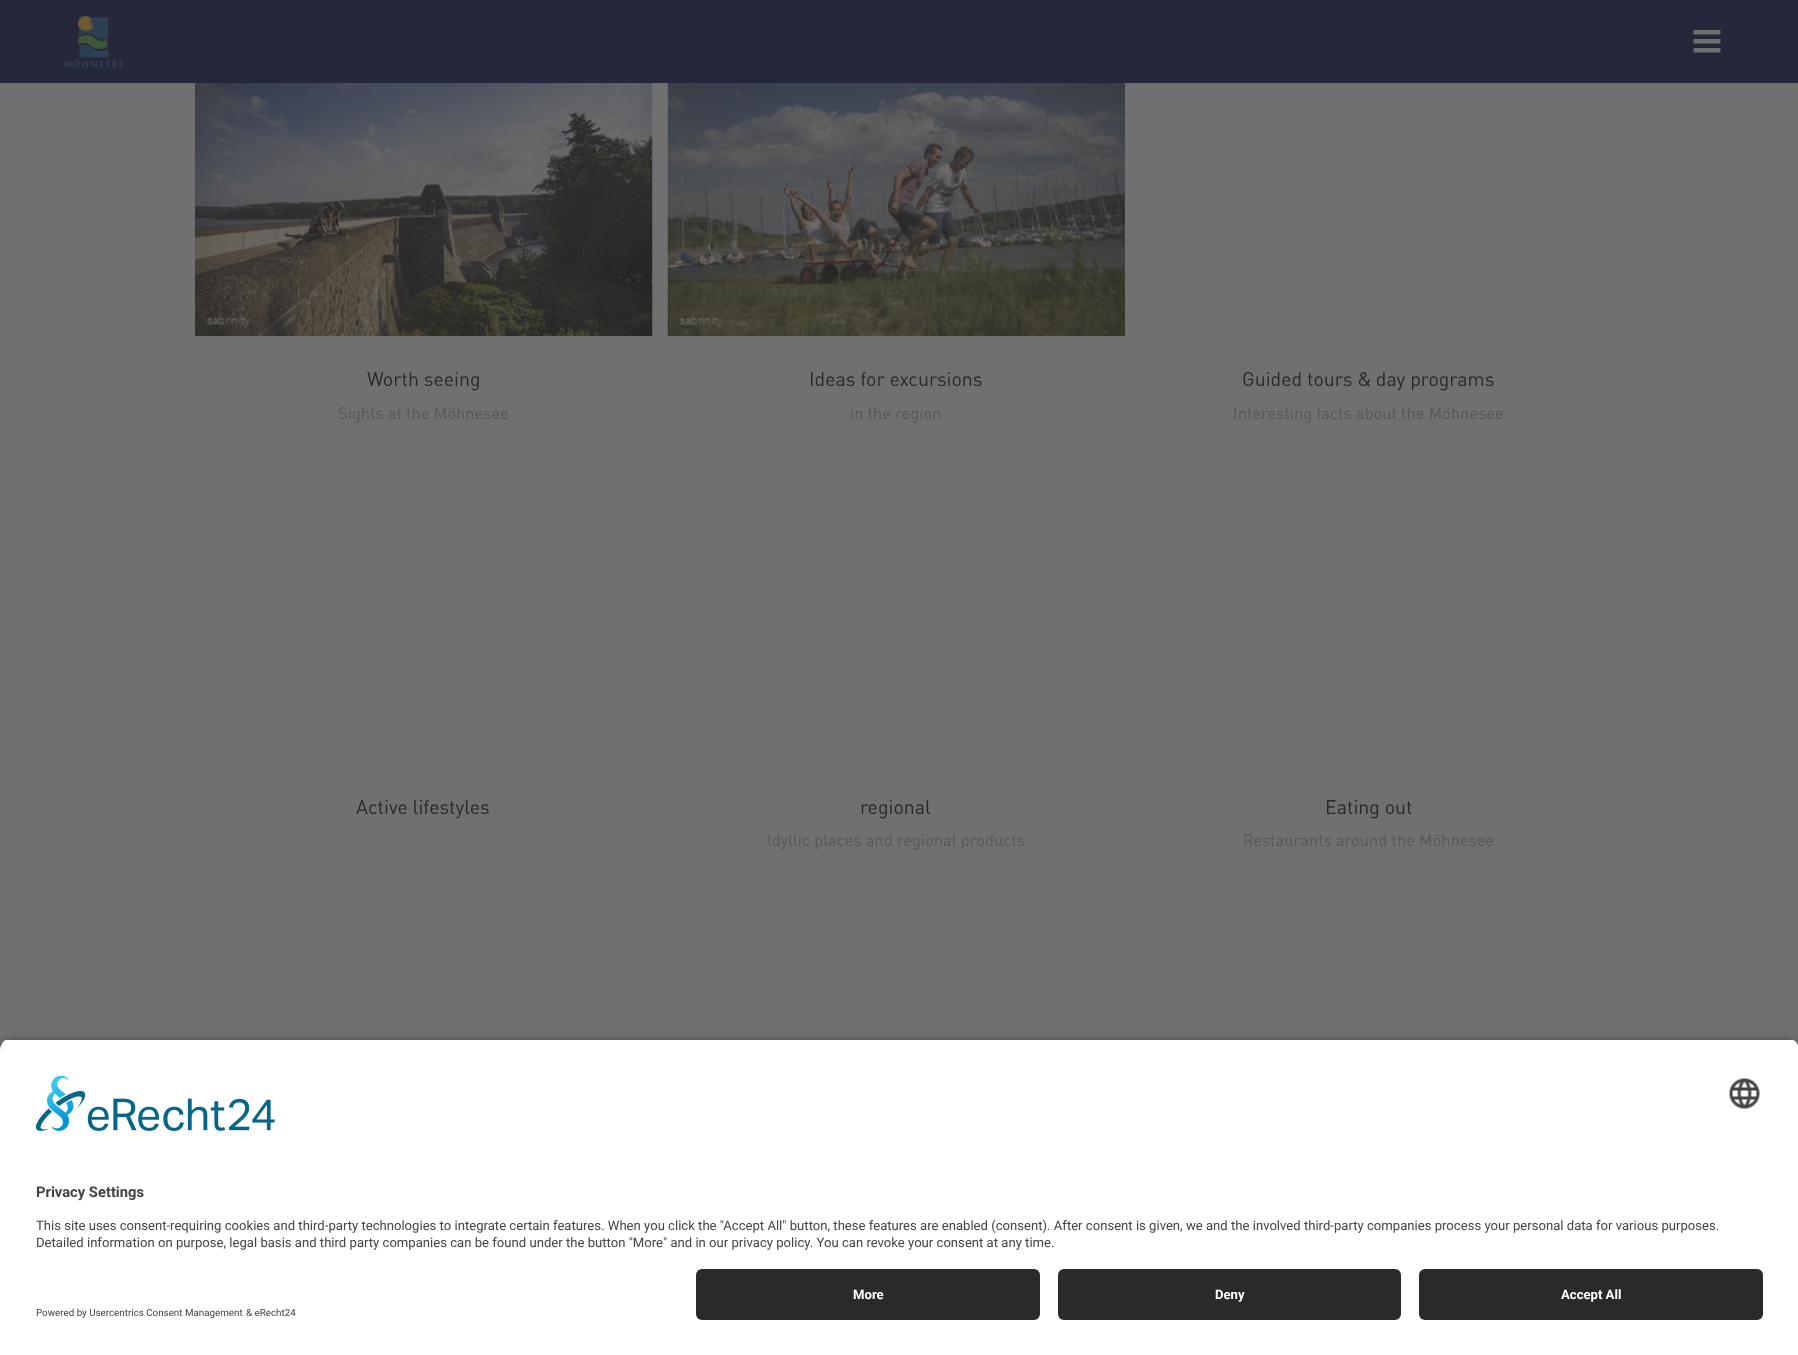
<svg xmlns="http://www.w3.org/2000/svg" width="1798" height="1355">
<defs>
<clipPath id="clip1"><path d="M12 1038h1775c6.5 0 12 5.5 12 12v207h-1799v-207c0-6.5 5.5-12 12-12z"/></clipPath>
</defs>
<rect width="100%" height="100%" fill="#707070"/>
<image x="195" y="83" width="458" height="253" href="media/3.png"/>
<image x="667" y="83" width="458" height="253" href="media/4.png"/>
<path d="M0 82v2h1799v-82h-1v80z" fill="#2424240d"/>
<rect width="1798" height="83" fill="#24283a"/>
<image x="63" y="15" width="61" height="53" href="media/1.png"/>
<image x="1693" y="30" width="28" height="23" href="media/2.png"/>
<text x="367" y="386" style="font-family:DIN;font-size:19.5px;fill:#292929">Worth seeing</text>
<text x="338" y="419" style="font-family:DIN;font-size:16.5px;fill:#575757">Sights at the Möhnesee</text>
<text x="809" y="386" style="font-family:DIN;font-size:19.5px;fill:#292929">Ideas for excursions</text>
<text x="850" y="419" style="font-family:DIN;font-size:16.5px;fill:#575757">in the region</text>
<text x="1242" y="386" style="font-family:DIN;font-size:19.5px;fill:#292929">Guided tours &amp; day programs</text>
<text x="1233" y="419" style="font-family:DIN;font-size:16.5px;fill:#575757">Interesting facts about the Möhnesee</text>
<text x="356" y="814" style="font-family:DIN;font-size:19.5px;fill:#292929">Active lifestyles</text>
<text x="860" y="814" style="font-family:DIN;font-size:19.5px;fill:#292929">regional</text>
<text x="767" y="846" style="font-family:DIN;font-size:16.5px;fill:#575757">Idyllic places and regional products</text>
<text x="1325" y="814" style="font-family:DIN;font-size:19.5px;fill:#292929">Eating out</text>
<text x="1243" y="846" style="font-family:DIN;font-size:16.5px;fill:#575757">Restaurants around the Möhnesee</text>
<rect y="1043" width="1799" height="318" rx="12" fill="#000000cc" filter="blur(5px)"/>
<g clip-path="url(#clip1)">
<rect y="1040" width="1798" height="217" fill="#fff"/>
</g>
<image x="36" y="1076" width="239" height="55" href="media/5.png"/>
<image x="1729" y="1078" width="31" height="31" href="media/6.png"/>
<text x="36" y="1197" style="font-family:Roboto;font-size:14.75px;font-weight:bold;fill:#444">Privacy Settings</text>
<text x="36" y="1230" style="font-family:Roboto;font-size:13.12px;fill:#444">This site uses consent-requiring cookies and third-party technologies to integrate certain features. When you click the "Accept All" button, these features are enabled (consent). After consent is given, we and the involved third-party companies process your personal data for various purposes.</text>
<text x="36" y="1247" style="font-family:Roboto;font-size:13.12px;fill:#444">Detailed information on purpose, legal basis and third party companies can be found under the button "More" and in our privacy policy. You can revoke your consent at any time.</text>
<rect y="1257" width="1798" height="98" fill="#fff"/>
<rect x="696" y="1269" width="344" height="51" rx="6" fill="#292a2b"/>
<text x="853" y="1299" style="font-family:Roboto;font-size:13.12px;font-weight:bold;fill:#fff">More</text>
<rect x="1058" y="1269" width="343" height="51" rx="6" fill="#292a2b"/>
<text x="1215" y="1299" style="font-family:Roboto;font-size:13.12px;font-weight:bold;fill:#fff">Deny</text>
<rect x="1419" y="1269" width="344" height="51" rx="6" fill="#292a2b"/>
<text x="1561" y="1299" style="font-family:Roboto;font-size:13.12px;font-weight:bold;fill:#fff">Accept All</text>
<text x="36" y="1316" style="font-family:Roboto;font-size:9.8px;fill:#444">Powered by Usercentrics Consent Management</text>
<text x="246" y="1316" style="font-family:Roboto;font-size:9.8px;fill:#444">&amp; eRecht24</text>
</svg>
